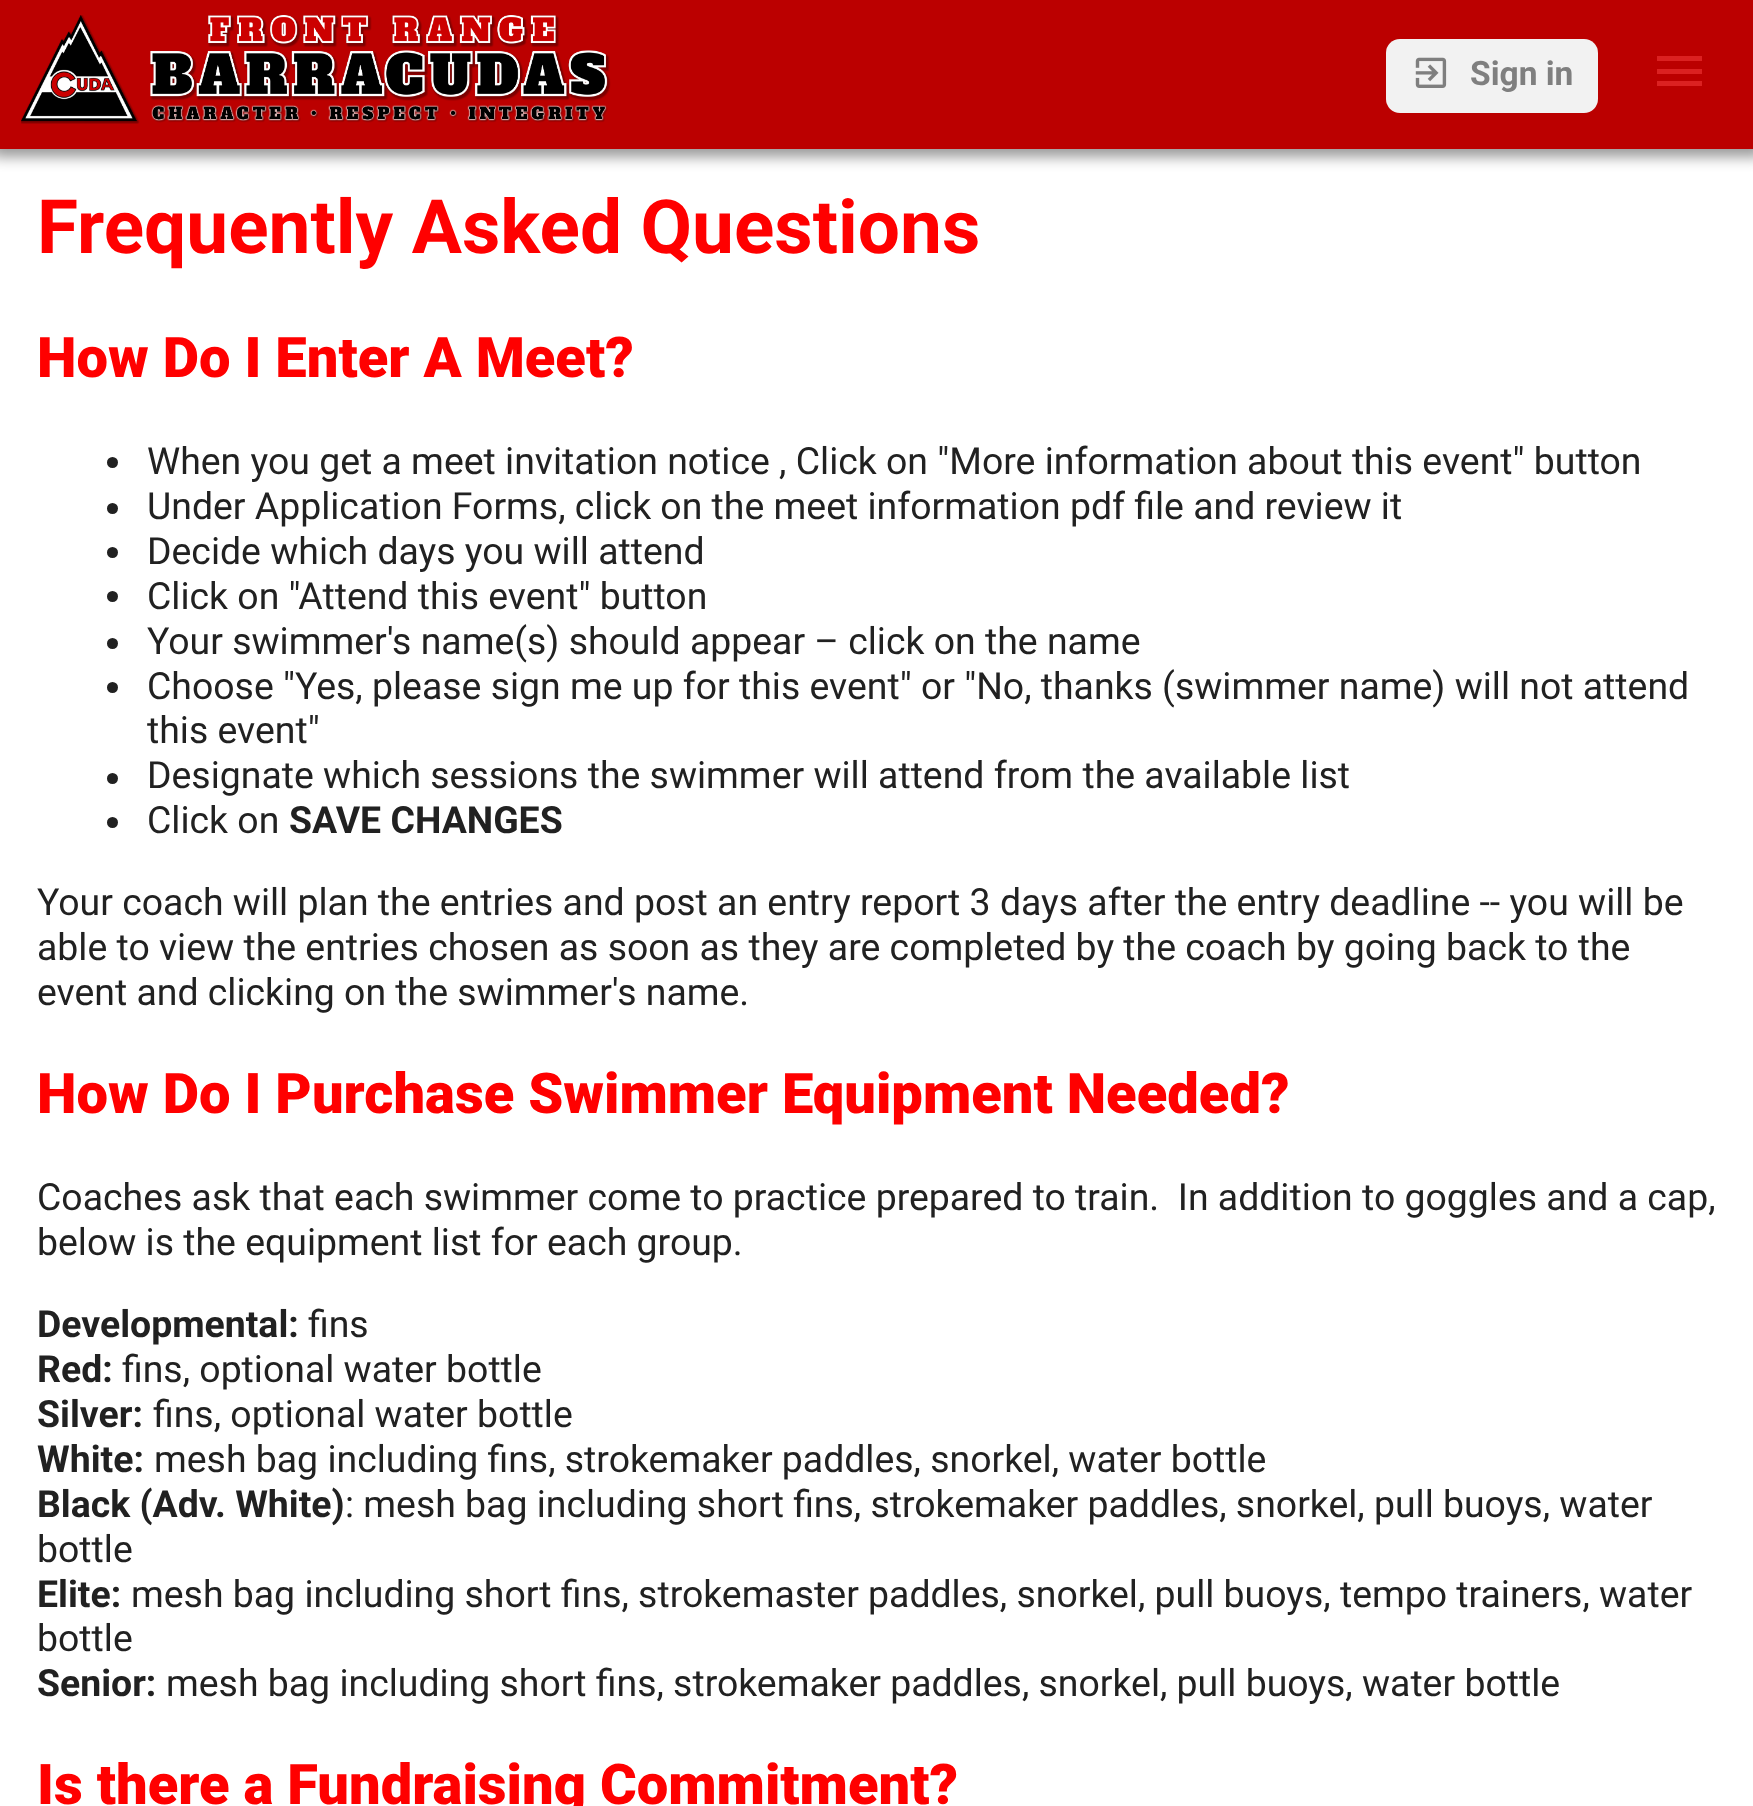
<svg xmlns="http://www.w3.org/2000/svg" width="1753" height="1806">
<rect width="100%" height="100%" fill="#fff"/>
<rect x="-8" y="-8" width="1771" height="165" fill="#00000066" filter="blur(7px)"/>
<rect width="1753" height="149" fill="#b00"/>
<image x="21" y="15" width="590" height="109" href="media/1.png"/>
<rect x="1386" y="39" width="212" height="74" rx="14" fill="#f2f2f2"/>
<image x="1415" y="57" width="32" height="31" href="media/2.png"/>
<text x="1470" y="85" style="font-family:Roboto;font-size:33.5px;font-weight:bold;fill:#7f7f7f">Sign in</text>
<path d="M1657 56h45v5h-45zm0 13h45v5h-45zm0 12h45v5h-45z" fill="#db2121"/>
<text x="37" y="253" style="font-family:Roboto;font-size:74.75px;font-weight:bold;fill:#f00">Frequently Asked Questions</text>
<text x="37" y="377" style="font-family:Roboto;font-size:56.1px;font-weight:900;fill:#f00">How Do I Enter A Meet?</text>
<circle cx="112.5" cy="462.5" r="5.5" fill="#212121"/>
<text x="147" y="474" style="font-family:Roboto;font-size:37.4px;fill:#212121">When you get a meet invitation notice , Click on "More information about this event" button</text>
<circle cx="112.5" cy="508.5" r="5.5" fill="#212121"/>
<text x="147" y="519" style="font-family:Roboto;font-size:37.4px;fill:#212121">Under Application Forms, click on the meet information pdf file and review it</text>
<circle cx="112.5" cy="552.5" r="5.5" fill="#212121"/>
<text x="147" y="564" style="font-family:Roboto;font-size:37.4px;fill:#212121">Decide which days you will attend</text>
<circle cx="112.5" cy="596.5" r="5.5" fill="#212121"/>
<text x="147" y="609" style="font-family:Roboto;font-size:37.4px;fill:#212121">Click on "Attend this event" button</text>
<circle cx="112.5" cy="643.5" r="5.5" fill="#212121"/>
<text x="147" y="654" style="font-family:Roboto;font-size:37.4px;fill:#212121">Your swimmer's name(s) should appear – click on the name</text>
<circle cx="112.5" cy="687.5" r="5.5" fill="#212121"/>
<text x="147" y="699" style="font-family:Roboto;font-size:37.4px;fill:#212121">Choose "Yes, please sign me up for this event" or "No, thanks (swimmer name) will not attend</text>
<text x="147" y="743" style="font-family:Roboto;font-size:37.4px;fill:#212121">this event"</text>
<circle cx="112.5" cy="778.5" r="5.5" fill="#212121"/>
<text x="147" y="788" style="font-family:Roboto;font-size:37.4px;fill:#212121">Designate which sessions the swimmer will attend from the available list</text>
<circle cx="112.5" cy="822.5" r="5.5" fill="#212121"/>
<text x="147" y="833" style="font-family:Roboto;font-size:37.4px;fill:#212121">Click on</text>
<text x="289" y="833" style="font-family:Roboto;font-size:37.4px;font-weight:bold;fill:#212121">SAVE CHANGES</text>
<text x="37" y="915" style="font-family:Roboto;font-size:37.4px;fill:#212121">Your coach will plan the entries and post an entry report 3 days after the entry deadline -- you will be</text>
<text x="37" y="960" style="font-family:Roboto;font-size:37.4px;fill:#212121">able to view the entries chosen as soon as they are completed by the coach by going back to the</text>
<text x="37" y="1005" style="font-family:Roboto;font-size:37.4px;fill:#212121">event and clicking on the swimmer's name.</text>
<text x="37" y="1113" style="font-family:Roboto;font-size:56.1px;font-weight:900;fill:#f00">How Do I Purchase Swimmer Equipment Needed?</text>
<text x="37" y="1210" style="font-family:Roboto;font-size:37.4px;fill:#212121" xml:space="preserve">Coaches ask that each swimmer come to practice prepared to train.  In addition to goggles and a cap,</text>
<text x="37" y="1255" style="font-family:Roboto;font-size:37.4px;fill:#212121">below is the equipment list for each group.</text>
<text x="37" y="1337" style="font-family:Roboto;font-size:37.4px;font-weight:bold;fill:#212121">Developmental:</text>
<text x="308" y="1337" style="font-family:Roboto;font-size:37.4px;fill:#212121">fins</text>
<text x="37" y="1382" style="font-family:Roboto;font-size:37.4px;font-weight:bold;fill:#212121">Red:</text>
<text x="122" y="1382" style="font-family:Roboto;font-size:37.4px;fill:#212121">fins, optional water bottle</text>
<text x="37" y="1427" style="font-family:Roboto;font-size:37.4px;font-weight:bold;fill:#212121">Silver:</text>
<text x="153" y="1427" style="font-family:Roboto;font-size:37.4px;fill:#212121">fins, optional water bottle</text>
<text x="37" y="1472" style="font-family:Roboto;font-size:37.4px;font-weight:bold;fill:#212121">White:</text>
<text x="154" y="1472" style="font-family:Roboto;font-size:37.4px;fill:#212121">mesh bag including fins, strokemaker paddles, snorkel, water bottle</text>
<text x="37" y="1517" style="font-family:Roboto;font-size:37.4px;font-weight:bold;fill:#212121">Black (Adv. White)</text>
<text x="345" y="1517" style="font-family:Roboto;font-size:37.4px;fill:#212121">: mesh bag including short fins, strokemaker paddles, snorkel, pull buoys, water</text>
<text x="37" y="1562" style="font-family:Roboto;font-size:37.4px;fill:#212121">bottle</text>
<text x="37" y="1607" style="font-family:Roboto;font-size:37.4px;font-weight:bold;fill:#212121">Elite:</text>
<text x="131" y="1607" style="font-family:Roboto;font-size:37.4px;fill:#212121">mesh bag including short fins, strokemaster paddles, snorkel, pull buoys, tempo trainers, water</text>
<text x="37" y="1651" style="font-family:Roboto;font-size:37.4px;fill:#212121">bottle</text>
<text x="37" y="1696" style="font-family:Roboto;font-size:37.4px;font-weight:bold;fill:#212121">Senior:</text>
<text x="166" y="1696" style="font-family:Roboto;font-size:37.4px;fill:#212121">mesh bag including short fins, strokemaker paddles, snorkel, pull buoys, water bottle</text>
<text x="37" y="1804" style="font-family:Roboto;font-size:56.1px;font-weight:900;fill:#f00">Is there a Fundraising Commitment?</text>
</svg>
